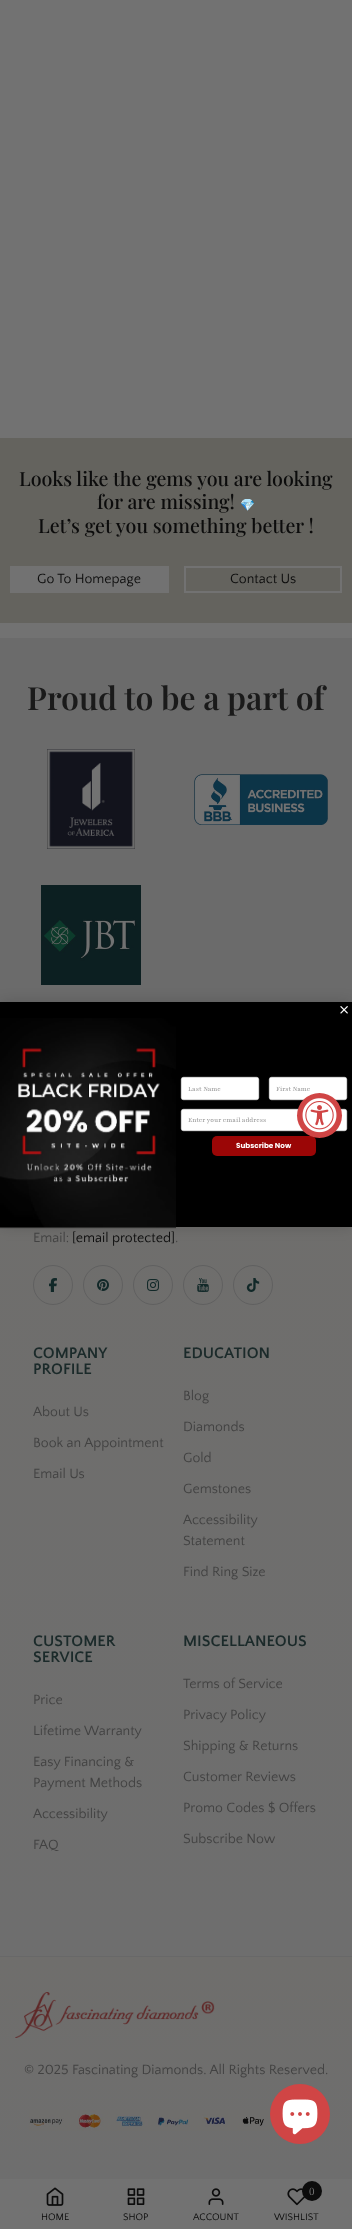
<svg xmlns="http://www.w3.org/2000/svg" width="352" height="2229">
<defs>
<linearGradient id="g1" gradientUnits="userSpaceOnUse" x1="176" y1="1033" x2="176" y2="1956"><stop offset="0" stop-color="#6f6e6c"/><stop offset="1" stop-color="#6e6e6e"/></linearGradient>
<linearGradient id="g2" gradientUnits="userSpaceOnUse" x1="176" y1="1957" x2="176" y2="2179"><stop offset="0" stop-color="#6f6e6c"/><stop offset="1" stop-color="#6e6e6e"/></linearGradient>
</defs>
<rect width="100%" height="100%" fill="#727272"/>
<rect y="438" width="352" height="185" fill="#64635e"/>
<text x="19" y="486" style="font-family:Playfair Display;font-size:19.6px;font-weight:500;fill:#0c0c0c">Looks like the gems you are looking</text>
<text x="97" y="509" style="font-family:Playfair Display;font-size:19.6px;font-weight:500;fill:#0c0c0c">for are missing!</text>
<text x="240" y="509" style="font-family:Noto Color Emoji;font-size:12px;fill:#0c0c0c">💎</text>
<text x="38" y="533" style="font-family:Playfair Display;font-size:19.6px;font-weight:500;fill:#0c0c0c">Let’s get you something better !</text>
<rect x="10" y="566" width="159" height="27" fill="#727272"/>
<text x="37" y="583" style="font-family:Quattrocento Sans;font-size:14px;fill:#0c0c0c">Go To Homepage</text>
<rect x="185" y="567" width="156" height="25" fill="none" stroke="#727272" stroke-width="2"/>
<text x="230" y="583" style="font-family:Quattrocento Sans;font-size:14px;fill:#0c0c0c">Contact Us</text>
<rect y="638" width="352" height="364" fill="#6b6b6b"/>
<text x="27" y="710" style="font-family:Playfair Display;font-size:32px;font-weight:600;fill:#1a1a1a">Proud to be a part of</text>
<image x="47" y="749" width="88" height="100" href="media/1.png"/>
<image x="194" y="774" width="134" height="51" href="media/2.png"/>
<image x="41" y="885" width="100" height="100" href="media/3.png"/>
<rect y="1227" width="352" height="729" fill="url(#g1)"/>
<text x="33" y="1242" style="font-family:Quattrocento Sans;font-size:14px;fill:#424242">Email:</text>
<text x="72" y="1242" style="font-family:Quattrocento Sans;font-size:14px;fill:#0c0c0c">[email protected]</text>
<text x="175" y="1242" style="font-family:Quattrocento Sans;font-size:14px;fill:#424242">.</text>
<circle cx="53" cy="1285" r="19.5" fill="none" stroke="#606060"/>
<image x="49" y="1278" width="8" height="14" href="media/4.png"/>
<circle cx="103" cy="1285" r="19.5" fill="none" stroke="#606060"/>
<image x="97" y="1279" width="12" height="12" href="media/5.png"/>
<circle cx="153" cy="1285" r="19.5" fill="none" stroke="#606060"/>
<image x="147" y="1279" width="12" height="12" href="media/6.png"/>
<circle cx="203" cy="1285" r="19.5" fill="none" stroke="#606060"/>
<image x="197" y="1278" width="12" height="14" href="media/7.png"/>
<circle cx="253" cy="1285" r="19.5" fill="none" stroke="#606060"/>
<image x="246" y="1278" width="14" height="14" href="media/8.png"/>
<text x="33" y="1358" style="font-family:Quattrocento Sans;font-size:16px;font-weight:bold;fill:#1b2a2a">COMPANY</text>
<text x="33" y="1374" style="font-family:Quattrocento Sans;font-size:16px;font-weight:bold;fill:#1b2a2a">PROFILE</text>
<text x="33" y="1416" style="font-family:Quattrocento Sans;font-size:14px;fill:#424242">About Us</text>
<text x="33" y="1447" style="font-family:Quattrocento Sans;font-size:14px;fill:#424242">Book an Appointment</text>
<text x="33" y="1478" style="font-family:Quattrocento Sans;font-size:14px;fill:#424242">Email Us</text>
<text x="183" y="1358" style="font-family:Quattrocento Sans;font-size:16px;font-weight:bold;fill:#1b2a2a">EDUCATION</text>
<text x="183" y="1400" style="font-family:Quattrocento Sans;font-size:14px;fill:#424242">Blog</text>
<text x="183" y="1431" style="font-family:Quattrocento Sans;font-size:14px;fill:#424242">Diamonds</text>
<text x="183" y="1462" style="font-family:Quattrocento Sans;font-size:14px;fill:#424242">Gold</text>
<text x="183" y="1493" style="font-family:Quattrocento Sans;font-size:14px;fill:#424242">Gemstones</text>
<text x="183" y="1524" style="font-family:Quattrocento Sans;font-size:14px;fill:#424242">Accessibility</text>
<text x="183" y="1545" style="font-family:Quattrocento Sans;font-size:14px;fill:#424242">Statement</text>
<text x="183" y="1576" style="font-family:Quattrocento Sans;font-size:14px;fill:#424242">Find Ring Size</text>
<text x="33" y="1646" style="font-family:Quattrocento Sans;font-size:16px;font-weight:bold;fill:#1b2a2a">CUSTOMER</text>
<text x="33" y="1662" style="font-family:Quattrocento Sans;font-size:16px;font-weight:bold;fill:#1b2a2a">SERVICE</text>
<text x="33" y="1704" style="font-family:Quattrocento Sans;font-size:14px;fill:#424242">Price</text>
<text x="33" y="1735" style="font-family:Quattrocento Sans;font-size:14px;fill:#424242">Lifetime Warranty</text>
<text x="33" y="1766" style="font-family:Quattrocento Sans;font-size:14px;fill:#424242">Easy Financing &amp;</text>
<text x="33" y="1787" style="font-family:Quattrocento Sans;font-size:14px;fill:#424242">Payment Methods</text>
<text x="33" y="1818" style="font-family:Quattrocento Sans;font-size:14px;fill:#424242">Accessibility</text>
<text x="33" y="1849" style="font-family:Quattrocento Sans;font-size:14px;fill:#424242">FAQ</text>
<text x="183" y="1646" style="font-family:Quattrocento Sans;font-size:16px;font-weight:bold;fill:#1b2a2a">MISCELLANEOUS</text>
<text x="183" y="1688" style="font-family:Quattrocento Sans;font-size:14px;fill:#424242">Terms of Service</text>
<text x="183" y="1719" style="font-family:Quattrocento Sans;font-size:14px;fill:#424242">Privacy Policy</text>
<text x="183" y="1750" style="font-family:Quattrocento Sans;font-size:14px;fill:#424242">Shipping &amp; Returns</text>
<text x="183" y="1781" style="font-family:Quattrocento Sans;font-size:14px;fill:#424242">Customer Reviews</text>
<text x="183" y="1812" style="font-family:Quattrocento Sans;font-size:14px;fill:#424242">Promo Codes $ Offers</text>
<text x="183" y="1843" style="font-family:Quattrocento Sans;font-size:14px;fill:#424242">Subscribe Now</text>
<rect y="1956" width="352" height="1" fill="#686868"/>
<rect y="1957" width="352" height="222" fill="url(#g2)"/>
<image x="15" y="1992" width="200" height="46" href="media/9.png"/>
<text x="24" y="2074" style="font-family:Quattrocento Sans;font-size:14px;fill:#424242">© 2025 Fascinating Diamonds. All Rights Reserved.</text>
<image x="29" y="2110" width="296" height="21" href="media/10.png"/>
<rect y="1002" width="352" height="225" fill="#00000026" filter="blur(7px)"/>
<rect y="1002" width="352" height="225" fill="#000"/>
<image x="340" y="1006" width="8" height="8" href="media/11.png"/>
<image x="0" y="1018" width="176" height="211" href="media/12.png"/>
<rect x="181.25" y="1077.25" width="77.5" height="22.5" rx="2.25" fill="#fff" stroke="#fff" stroke-width="0.5"/>
<text x="188" y="1091" style="font-family:'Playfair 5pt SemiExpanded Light';font-size:7.25px;fill:#919191">Last Name</text>
<rect x="269.25" y="1077.25" width="77.5" height="22.5" rx="2.25" fill="#fff" stroke="#fff" stroke-width="0.5"/>
<text x="276" y="1091" style="font-family:'Playfair 5pt SemiExpanded Light';font-size:7.25px;fill:#919191">First Name</text>
<rect x="181.25" y="1109.25" width="165.5" height="21.5" rx="2.25" fill="#fff" stroke="#fff" stroke-width="0.5"/>
<text x="188" y="1122" style="font-family:'Playfair 5pt SemiExpanded Light';font-size:7.25px;fill:#919191">Enter your email address</text>
<rect x="212" y="1136" width="104" height="20" rx="5" fill="#9b0606"/>
<text x="236" y="1148" style="font-family:Poppins;font-size:7.25px;font-weight:bold;fill:#fff">Subscribe Now</text>
<circle cx="319.5" cy="1115.5" r="22.5" fill="#d04545"/>
<image x="302" y="1098" width="35" height="35" href="media/13.png"/>
<circle cx="300" cy="2114" r="30" fill="#d04545"/>
<image x="282" y="2099" width="36" height="36" href="media/14.png"/>
<image x="46" y="2187" width="18" height="19" href="media/15.png"/>
<text x="41" y="2220" style="font-family:Quattrocento Sans;font-size:10px;fill:#0c0c0c">HOME</text>
<image x="127" y="2188" width="18" height="17" href="media/16.png"/>
<text x="123" y="2220" style="font-family:Quattrocento Sans;font-size:10px;fill:#0c0c0c">SHOP</text>
<image x="208" y="2188" width="16" height="17" href="media/17.png"/>
<text x="193" y="2220" style="font-family:Quattrocento Sans;font-size:10px;fill:#0c0c0c">ACCOUNT</text>
<image x="287" y="2188" width="18" height="18" href="media/18.png"/>
<circle cx="312" cy="2191" r="10" fill="#0c0c0c"/>
<text x="309" y="2195" style="font-family:Liberation Serif;font-size:11px;fill:#727272">0</text>
<text x="274" y="2220" style="font-family:Quattrocento Sans;font-size:10px;fill:#0c0c0c">WISHLIST</text>
</svg>
